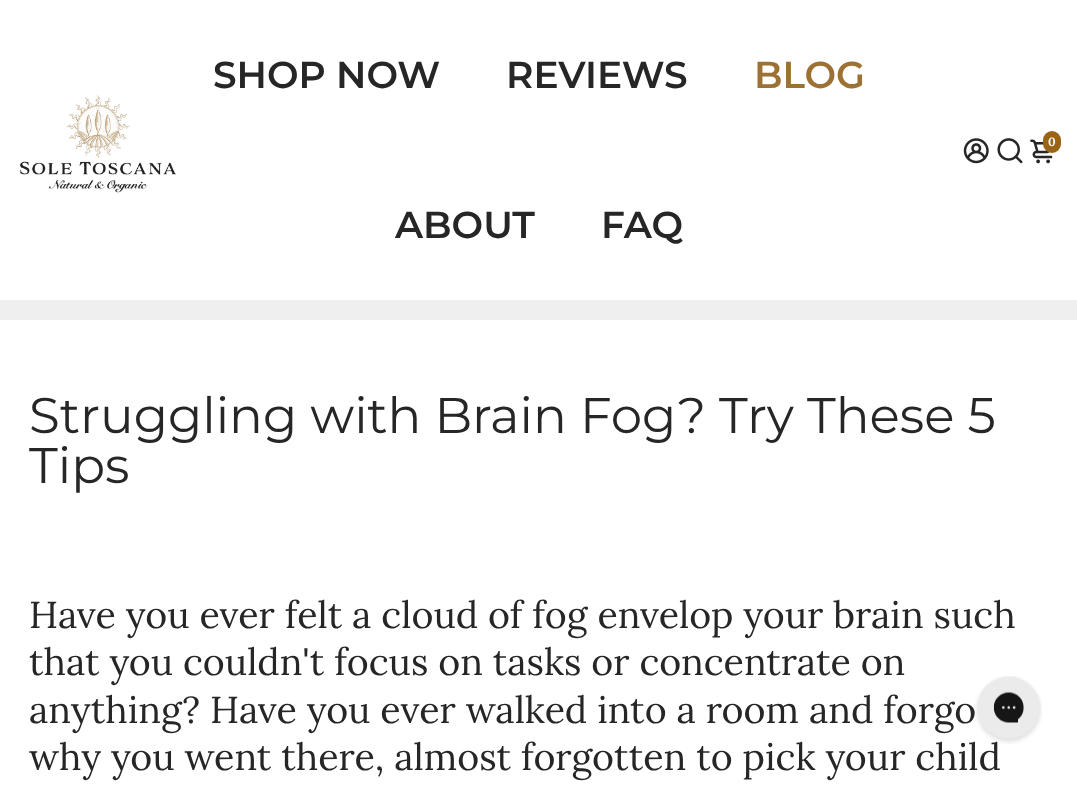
<svg xmlns="http://www.w3.org/2000/svg" width="1077" height="803">
<rect width="100%" height="100%" fill="#fff"/>
<image x="20" y="95" width="157" height="98" href="media/1.png"/>
<text x="213" y="88" style="font-family:Montserrat;font-size:37.5px;font-weight:600;fill:#262626">SHOP NOW</text>
<text x="506" y="88" style="font-family:Montserrat;font-size:37.5px;font-weight:600;fill:#262626">REVIEWS</text>
<text x="754" y="88" style="font-family:Montserrat;font-size:37.5px;font-weight:600;fill:#9c7234">BLOG</text>
<text x="395" y="238" style="font-family:Montserrat;font-size:37.5px;font-weight:600;fill:#262626">ABOUT</text>
<text x="601" y="238" style="font-family:Montserrat;font-size:37.5px;font-weight:600;fill:#262626">FAQ</text>
<image x="963" y="138" width="26" height="26" href="media/2.png"/>
<image x="997" y="138" width="26" height="26" href="media/3.png"/>
<image x="1030" y="139" width="23" height="25" href="media/4.png"/>
<rect x="1043" y="131" width="18" height="22" rx="9" fill="#996515"/>
<text x="1048" y="146" style="font-family:Lora;font-size:12px;font-weight:bold;fill:#fff">0</text>
<rect y="300" width="1077" height="20" fill="#efefef"/>
<text x="29" y="433" style="font-family:Montserrat;font-size:50px;font-weight:100;fill:#262626">Struggling with Brain Fog? Try These 5</text>
<text x="29" y="483" style="font-family:Montserrat;font-size:50px;font-weight:100;fill:#262626">Tips</text>
<text x="29" y="628" style="font-family:Lora;font-size:37.5px;fill:#262626">Have you ever felt a cloud of fog envelop your brain such</text>
<text x="29" y="675" style="font-family:Lora;font-size:37.5px;fill:#262626">that you couldn't focus on tasks or concentrate on</text>
<text x="29" y="723" style="font-family:Lora;font-size:37.5px;fill:#262626">anything? Have you ever walked into a room and forgo</text>
<text x="29" y="770" style="font-family:Lora;font-size:37.5px;fill:#262626">why you went there, almost forgotten to pick your child</text>
<image x="975" y="676" width="67" height="68" href="media/5.png"/>
</svg>
